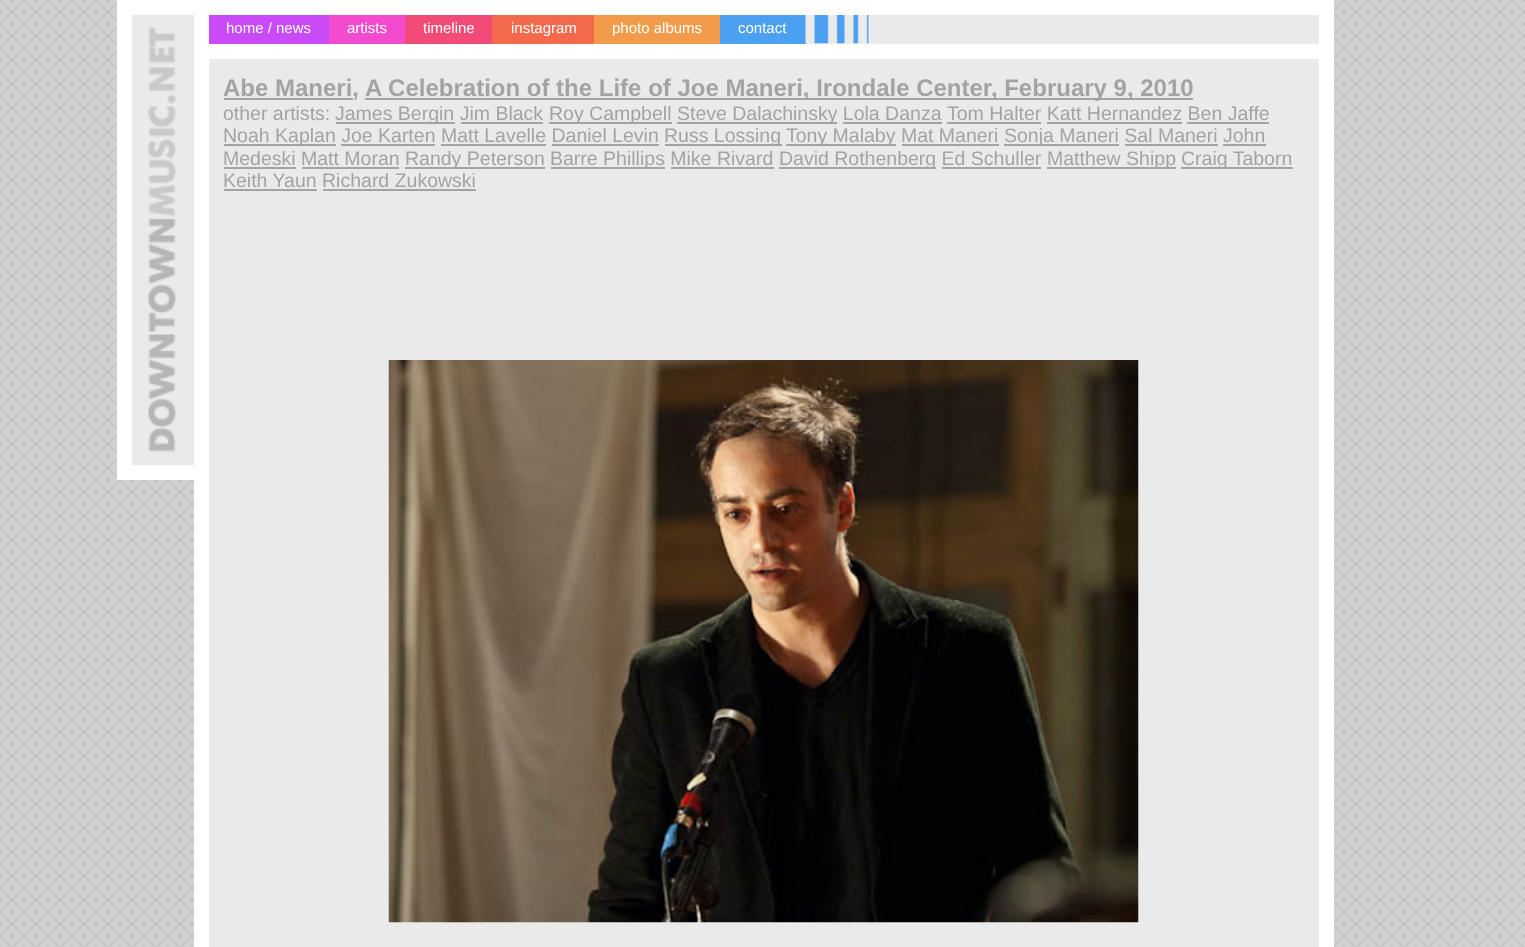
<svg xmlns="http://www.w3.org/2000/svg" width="1525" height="947">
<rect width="100%" height="100%" fill="#fff"/>
<image x="0" y="0" width="1525" height="947" href="media/1.png"/>
<rect x="201.5" y="7.5" width="1125" height="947" fill="#eaeaea" stroke="#fff" stroke-width="15"/>
<rect x="132" y="15" width="62" height="450" fill="#eaeaea"/>
<image x="148" y="27" width="28" height="425" href="media/2.png"/>
<rect x="132" width="62" height="15" fill="#fff"/>
<rect x="132" y="465" width="62" height="15" fill="#fff"/>
<rect x="117" width="15" height="480" fill="#fff"/>
<rect x="209" y="44" width="1110" height="15" fill="#fff"/>
<rect x="209" y="15" width="120" height="29" fill="#c94af7"/>
<text x="226" y="33" style="font-family:Liberation Sans;font-size:15px;fill:#fff">home / news</text>
<rect x="329" y="15" width="76" height="29" fill="#f24bcd"/>
<text x="347" y="33" style="font-family:Liberation Sans;font-size:15px;fill:#fff">artists</text>
<rect x="405" y="15" width="87" height="29" fill="#f24b77"/>
<text x="423" y="33" style="font-family:Liberation Sans;font-size:15px;fill:#fff">timeline</text>
<rect x="492" y="15" width="102" height="29" fill="#f26a4b"/>
<text x="511" y="33" style="font-family:Liberation Sans;font-size:15px;fill:#fff">instagram</text>
<rect x="594" y="15" width="126" height="29" fill="#f29c4b"/>
<text x="612" y="33" style="font-family:Liberation Sans;font-size:15px;fill:#fff">photo albums</text>
<rect x="720" y="15" width="86" height="29" fill="#4ba0f2"/>
<text x="738" y="33" style="font-family:Liberation Sans;font-size:15px;fill:#fff">contact</text>
<image x="805" y="15" width="64" height="29" href="media/3.png"/>
<rect x="224" y="98" width="129" height="2" fill="#a4a3a3"/>
<text x="223" y="96" style="font-family:Liberation Sans;font-size:24px;font-weight:bold;fill:#a4a3a3">Abe Maneri,</text>
<rect x="365" y="98" width="828" height="2" fill="#a4a3a3"/>
<text x="365" y="96" style="font-family:Liberation Sans;font-size:24px;font-weight:bold;fill:#a4a3a3">A Celebration of the Life of Joe Maneri, Irondale Center, February 9, 2010</text>
<text x="223" y="120" style="font-family:Liberation Sans;font-size:19.5px;fill:#a4a3a3">other artists:</text>
<rect x="336" y="122" width="119" height="2" fill="#a4a3a3"/>
<text x="335" y="120" style="font-family:Liberation Sans;font-size:19.5px;fill:#a4a3a3">James Bergin Jim Black</text>
<rect x="549" y="122" width="123" height="2" fill="#a4a3a3"/>
<text x="549" y="120" style="font-family:Liberation Sans;font-size:19.5px;fill:#a4a3a3">Roy Campbell</text>
<rect x="677" y="122" width="160" height="2" fill="#a4a3a3"/>
<text x="677" y="120" style="font-family:Liberation Sans;font-size:19.5px;fill:#a4a3a3">Steve Dalachinsky Lola Danza</text>
<text x="947" y="120" style="font-family:Liberation Sans;font-size:19.5px;fill:#a4a3a3">Tom Halter Katt Hernandez Ben Jaffe</text>
<rect x="947" y="122" width="94" height="2" fill="#a4a3a3"/>
<rect x="461" y="122" width="82" height="2" fill="#a4a3a3"/>
<rect x="843" y="122" width="99" height="2" fill="#a4a3a3"/>
<rect x="1047" y="122" width="135" height="2" fill="#a4a3a3"/>
<rect x="1187" y="122" width="82" height="2" fill="#a4a3a3"/>
<rect x="224" y="144" width="112" height="2" fill="#a4a3a3"/>
<text x="223" y="142" style="font-family:Liberation Sans;font-size:19.5px;fill:#a4a3a3">Noah Kaplan Joe Karten Matt Lavelle Daniel Levin</text>
<rect x="665" y="144" width="117" height="2" fill="#a4a3a3"/>
<text x="664" y="142" style="font-family:Liberation Sans;font-size:19.5px;fill:#a4a3a3">Russ Lossing</text>
<rect x="786" y="144" width="110" height="2" fill="#a4a3a3"/>
<text x="786" y="142" style="font-family:Liberation Sans;font-size:19.5px;fill:#a4a3a3">Tony Malaby Mat Maneri</text>
<rect x="1004" y="144" width="115" height="2" fill="#a4a3a3"/>
<text x="1004" y="142" style="font-family:Liberation Sans;font-size:19.5px;fill:#a4a3a3">Sonja Maneri Sal Maneri John</text>
<rect x="341" y="144" width="94" height="2" fill="#a4a3a3"/>
<rect x="441" y="144" width="105" height="2" fill="#a4a3a3"/>
<rect x="552" y="144" width="107" height="2" fill="#a4a3a3"/>
<rect x="902" y="144" width="97" height="2" fill="#a4a3a3"/>
<rect x="1125" y="144" width="93" height="2" fill="#a4a3a3"/>
<text x="223" y="165" style="font-family:Liberation Sans;font-size:19.5px;fill:#a4a3a3">Medeski Matt Moran</text>
<rect x="1223" y="144" width="43" height="2" fill="#a4a3a3"/>
<rect x="224" y="167" width="72" height="2" fill="#a4a3a3"/>
<rect x="405" y="167" width="140" height="2" fill="#a4a3a3"/>
<text x="405" y="165" style="font-family:Liberation Sans;font-size:19.5px;fill:#a4a3a3">Randy Peterson</text>
<rect x="551" y="167" width="114" height="2" fill="#a4a3a3"/>
<text x="550" y="165" style="font-family:Liberation Sans;font-size:19.5px;fill:#a4a3a3">Barre Phillips Mike Rivard</text>
<rect x="779" y="167" width="157" height="2" fill="#a4a3a3"/>
<text x="779" y="165" style="font-family:Liberation Sans;font-size:19.5px;fill:#a4a3a3">David Rothenberg Ed Schuller</text>
<rect x="1047" y="167" width="129" height="2" fill="#a4a3a3"/>
<text x="1047" y="165" style="font-family:Liberation Sans;font-size:19.5px;fill:#a4a3a3">Matthew Shipp</text>
<rect x="1181" y="167" width="112" height="2" fill="#a4a3a3"/>
<text x="1181" y="165" style="font-family:Liberation Sans;font-size:19.5px;fill:#a4a3a3">Craig Taborn</text>
<rect x="302" y="167" width="97" height="2" fill="#a4a3a3"/>
<rect x="671" y="167" width="103" height="2" fill="#a4a3a3"/>
<rect x="942" y="167" width="99" height="2" fill="#a4a3a3"/>
<text x="223" y="187" style="font-family:Liberation Sans;font-size:19.5px;fill:#a4a3a3">Keith Yaun Richard Zukowski</text>
<rect x="224" y="189" width="93" height="2" fill="#a4a3a3"/>
<rect x="323" y="189" width="153" height="2" fill="#a4a3a3"/>
<image x="388" y="360" width="751" height="563" href="media/4.png"/>
</svg>
